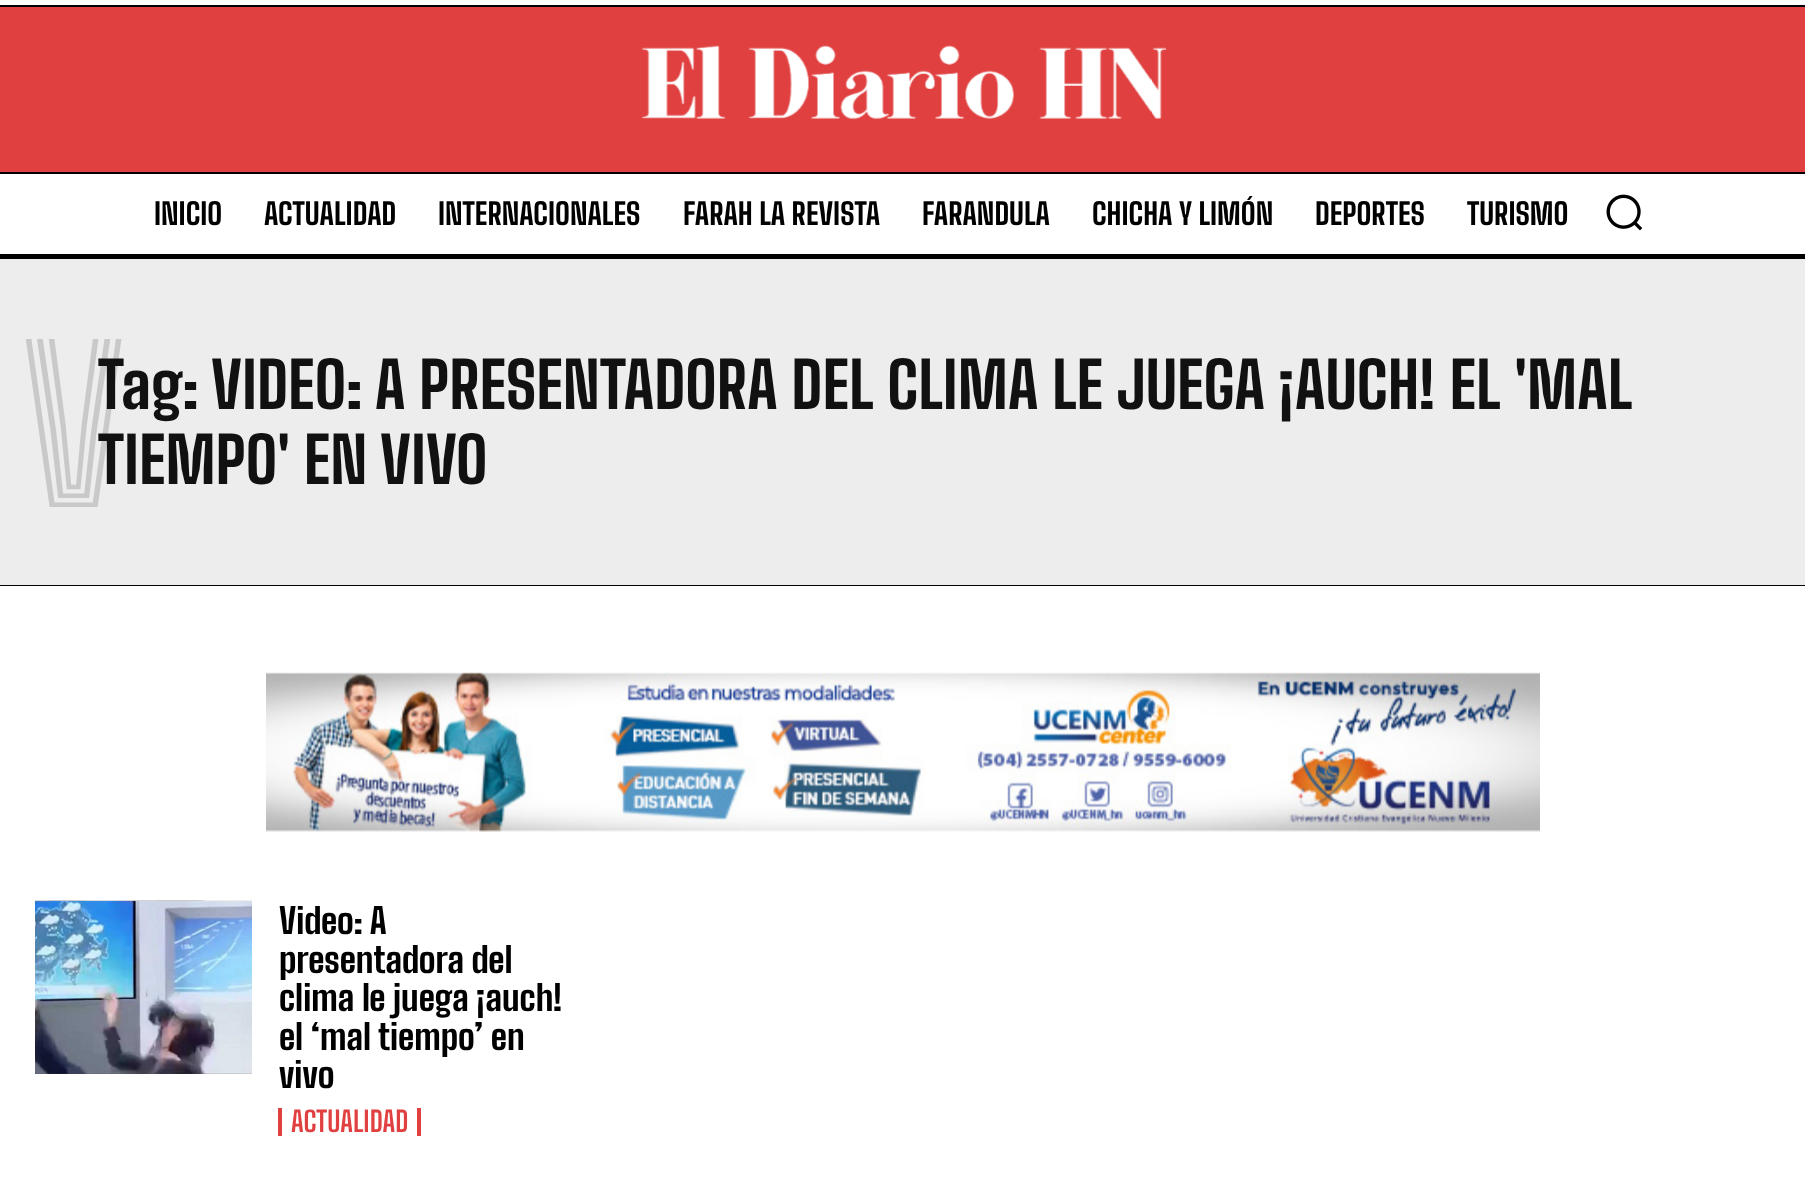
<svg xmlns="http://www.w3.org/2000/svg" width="1805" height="1198">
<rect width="100%" height="100%" fill="#fff"/>
<rect y="5" width="1805" height="2" fill="#000"/>
<rect y="7" width="1805" height="165" fill="#e04040"/>
<image x="641" y="45" width="525" height="75" href="media/1.png"/>
<rect y="172" width="1805" height="2" fill="#000"/>
<rect y="254" width="1805" height="5" fill="#000"/>
<text x="154" y="225" style="font-family:Big Shoulders Text;font-size:29.75px;font-weight:800;fill:#000">INICIO</text>
<text x="264" y="225" style="font-family:Big Shoulders Text;font-size:29.75px;font-weight:800;fill:#000">ACTUALIDAD</text>
<text x="438" y="225" style="font-family:Big Shoulders Text;font-size:29.75px;font-weight:800;fill:#000">INTERNACIONALES</text>
<text x="683" y="225" style="font-family:Big Shoulders Text;font-size:29.75px;font-weight:800;fill:#000">FARAH LA REVISTA</text>
<text x="922" y="225" style="font-family:Big Shoulders Text;font-size:29.75px;font-weight:800;fill:#000">FARANDULA</text>
<text x="1092" y="225" style="font-family:Big Shoulders Text;font-size:29.75px;font-weight:800;fill:#000">CHICHA Y LIMÓN</text>
<text x="1315" y="225" style="font-family:Big Shoulders Text;font-size:29.75px;font-weight:800;fill:#000">DEPORTES</text>
<text x="1467" y="225" style="font-family:Big Shoulders Text;font-size:29.75px;font-weight:800;fill:#000">TURISMO</text>
<image x="1606" y="194" width="37" height="37" href="media/2.png"/>
<rect y="259" width="1805" height="326" fill="#ededed"/>
<rect y="585" width="1805" height="1" fill="#000"/>
<text x="22" y="507" style="font-family:Big Shoulders Inline Text;font-size:210px;font-weight:800;fill:#c9c9c9">V</text>
<text x="98" y="409" style="font-family:Big Shoulders Text;font-size:63px;font-weight:800;fill:#111">Tag:</text>
<text x="211" y="409" style="font-family:Big Shoulders Text;font-size:63px;font-weight:800;fill:#111">VIDEO: A PRESENTADORA DEL CLIMA LE JUEGA ¡AUCH! EL 'MAL</text>
<text x="98" y="484" style="font-family:Big Shoulders Text;font-size:63px;font-weight:800;fill:#111">TIEMPO' EN VIVO</text>
<image x="266" y="672" width="1274" height="160" href="media/3.png"/>
<image x="35" y="900" width="217" height="174" href="media/4.png"/>
<text x="279" y="934" style="font-family:Big Shoulders Text;font-size:35px;font-weight:800;fill:#000">Video: A</text>
<text x="279" y="973" style="font-family:Big Shoulders Text;font-size:35px;font-weight:800;fill:#000">presentadora del</text>
<text x="279" y="1011" style="font-family:Big Shoulders Text;font-size:35px;font-weight:800;fill:#000">clima le juega ¡auch!</text>
<text x="279" y="1050" style="font-family:Big Shoulders Text;font-size:35px;font-weight:800;fill:#000">el ‘mal tiempo’ en</text>
<text x="279" y="1088" style="font-family:Big Shoulders Text;font-size:35px;font-weight:800;fill:#000">vivo</text>
<rect x="417" y="1108" width="4" height="28" fill="#e04040"/>
<rect x="278" y="1108" width="4" height="28" fill="#e04040"/>
<text x="291" y="1132" style="font-family:Big Shoulders Text;font-size:28px;font-weight:bold;fill:#e04040">ACTUALIDAD</text>
</svg>
